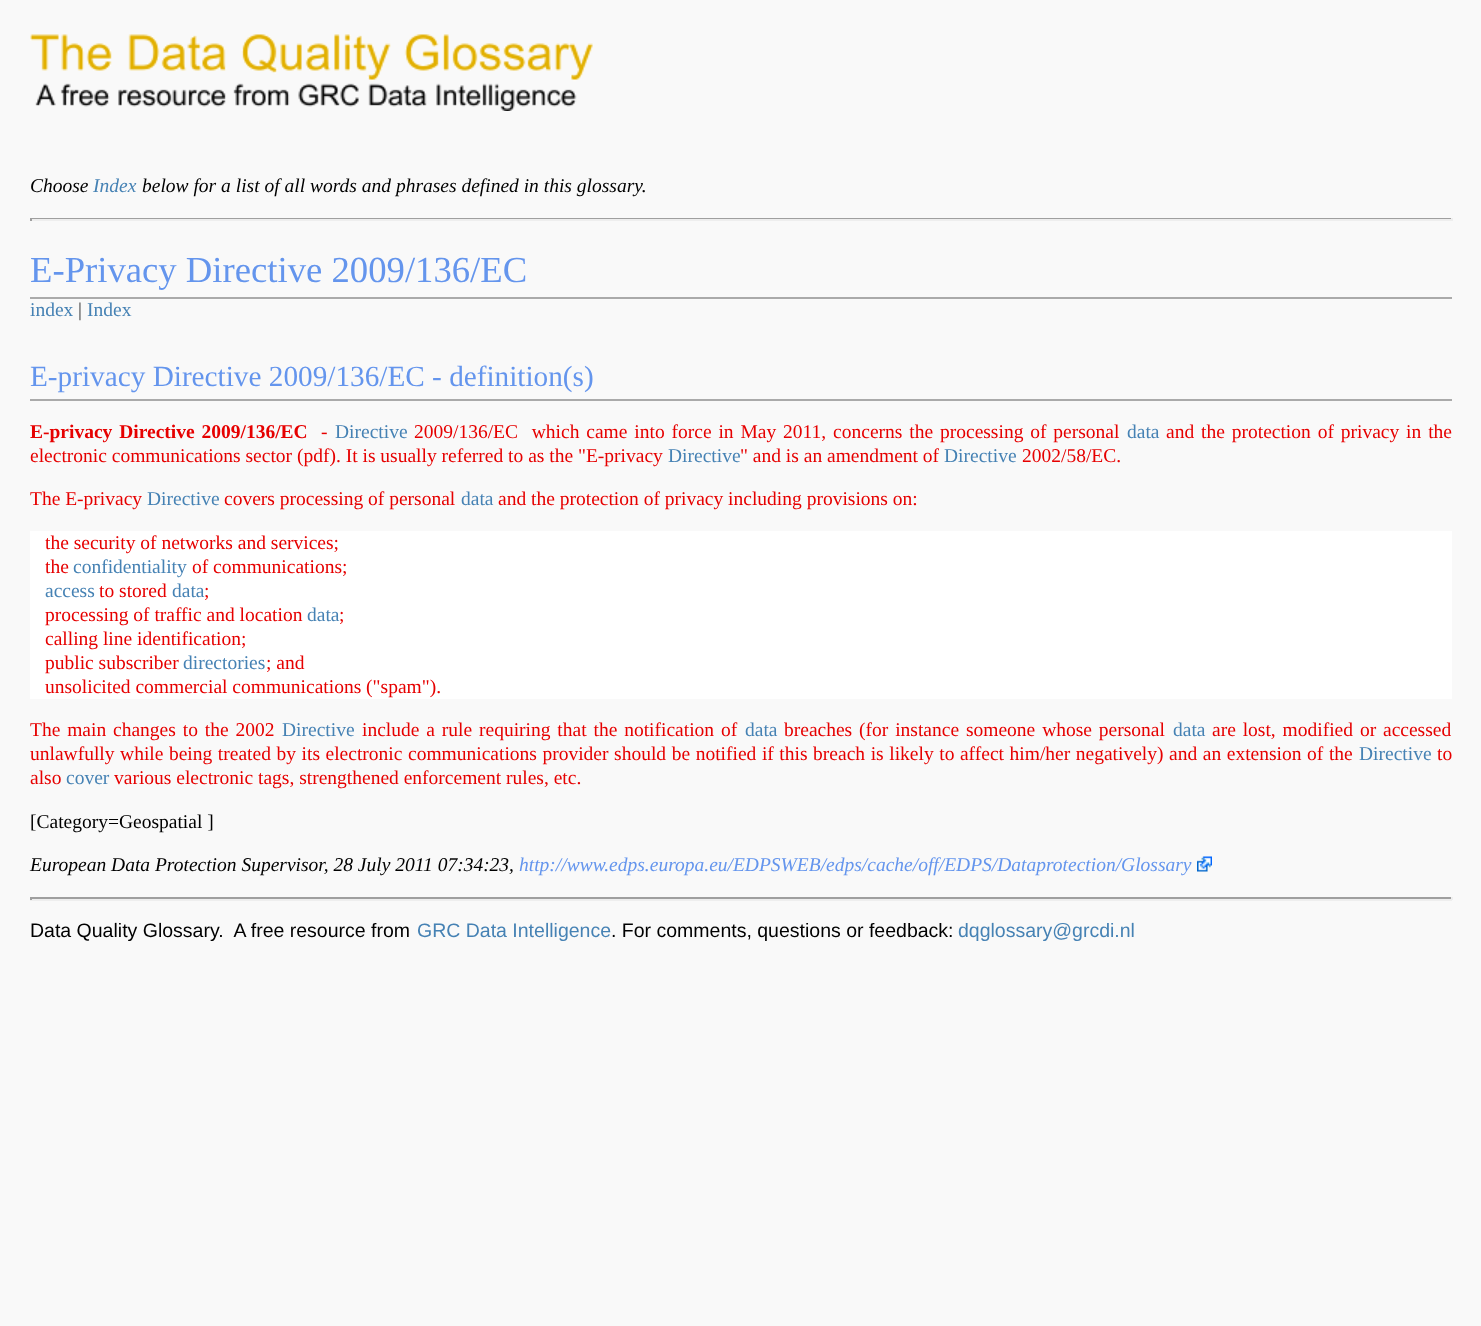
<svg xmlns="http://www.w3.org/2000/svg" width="1481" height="1326">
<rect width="100%" height="100%" fill="#f9f9f9"/>
<image x="30" y="34" width="563" height="77" href="media/1.png"/>
<text x="30" y="192" style="font-family:Liberation Serif;font-size:19.5px;font-style:italic;fill:#000">Choose</text>
<text x="93" y="192" style="font-family:Liberation Serif;font-size:19.5px;font-style:italic;fill:#4682b4">Index</text>
<text x="142" y="192" style="font-family:Liberation Serif;font-size:19.5px;font-style:italic;fill:#000">below for a list of all words and phrases defined in this glossary.</text>
<rect x="30" y="218" width="1422" height="1" fill="#9f9f9f"/>
<rect x="1451" y="218" width="2" height="3" fill="#eee"/>
<rect x="30" y="219" width="1422" height="2" fill="#eee"/>
<rect x="30" y="218" width="2" height="3" fill="#9f9f9f"/>
<rect x="30" y="297" width="1422" height="2" fill="#aaa"/>
<text x="30" y="282" style="font-family:Liberation Serif;font-size:36.7px;fill:#6495ed">E-Privacy Directive 2009/136/EC</text>
<text x="30" y="316" style="font-family:Liberation Serif;font-size:19.5px;fill:#4682b4">index</text>
<text x="78" y="316" style="font-family:Liberation Serif;font-size:19.5px;fill:#333">|</text>
<text x="87" y="316" style="font-family:Liberation Serif;font-size:19.5px;fill:#4682b4">Index</text>
<rect x="30" y="399" width="1422" height="2" fill="#aaa"/>
<text x="30" y="386" style="font-family:Liberation Serif;font-size:29.25px;fill:#6495ed">E-privacy Directive 2009/136/EC - definition(s)</text>
<text x="30" y="438" word-spacing="2" style="font-family:Liberation Serif;font-size:19.5px;font-weight:bold;fill:#e60000">E-privacy Directive 2009/136/EC</text>
<text x="321" y="438" style="font-family:Liberation Serif;font-size:19.5px;fill:#e60000">-</text>
<text x="335" y="438" style="font-family:Liberation Serif;font-size:19.5px;fill:#4682b4">Directive</text>
<text x="414" y="438" word-spacing="2" style="font-family:Liberation Serif;font-size:19.5px;fill:#e60000" xml:space="preserve">2009/136/EC  which came into force in May 2011, concerns the processing of personal</text>
<text x="1127" y="438" style="font-family:Liberation Serif;font-size:19.5px;fill:#4682b4">data</text>
<text x="1166" y="438" word-spacing="2" style="font-family:Liberation Serif;font-size:19.5px;fill:#e60000">and the protection of privacy in the</text>
<text x="30" y="462" style="font-family:Liberation Serif;font-size:19.5px;fill:#e60000">electronic communications sector (pdf). It is usually referred to as the "E-privacy</text>
<text x="668" y="462" style="font-family:Liberation Serif;font-size:19.5px;fill:#4682b4">Directive</text>
<text x="740" y="462" style="font-family:Liberation Serif;font-size:19.5px;fill:#e60000">" and is an amendment of</text>
<text x="944" y="462" style="font-family:Liberation Serif;font-size:19.5px;fill:#4682b4">Directive</text>
<text x="1022" y="462" style="font-family:Liberation Serif;font-size:19.5px;fill:#e60000">2002/58/EC.</text>
<text x="30" y="505" style="font-family:Liberation Serif;font-size:19.5px;fill:#e60000">The E-privacy</text>
<text x="147" y="505" style="font-family:Liberation Serif;font-size:19.5px;fill:#4682b4">Directive</text>
<text x="224" y="505" style="font-family:Liberation Serif;font-size:19.5px;fill:#e60000">covers processing of personal</text>
<text x="461" y="505" style="font-family:Liberation Serif;font-size:19.5px;fill:#4682b4">data</text>
<text x="498" y="505" style="font-family:Liberation Serif;font-size:19.5px;fill:#e60000">and the protection of privacy including provisions on:</text>
<rect x="30" y="531" width="1422" height="168" fill="#fff"/>
<text x="45" y="549" style="font-family:Liberation Serif;font-size:19.5px;fill:#e60000">the security of networks and services;</text>
<text x="45" y="573" style="font-family:Liberation Serif;font-size:19.5px;fill:#e60000">the</text>
<text x="73" y="573" style="font-family:Liberation Serif;font-size:19.5px;fill:#4682b4">confidentiality</text>
<text x="192" y="573" style="font-family:Liberation Serif;font-size:19.5px;fill:#e60000">of communications;</text>
<text x="45" y="597" style="font-family:Liberation Serif;font-size:19.5px;fill:#4682b4">access</text>
<text x="99" y="597" style="font-family:Liberation Serif;font-size:19.5px;fill:#e60000">to stored</text>
<text x="172" y="597" style="font-family:Liberation Serif;font-size:19.5px;fill:#4682b4">data</text>
<text x="204" y="597" style="font-family:Liberation Serif;font-size:19.5px;fill:#e60000">;</text>
<text x="45" y="621" style="font-family:Liberation Serif;font-size:19.5px;fill:#e60000">processing of traffic and location</text>
<text x="307" y="621" style="font-family:Liberation Serif;font-size:19.5px;fill:#4682b4">data</text>
<text x="339" y="621" style="font-family:Liberation Serif;font-size:19.5px;fill:#e60000">;</text>
<text x="45" y="645" style="font-family:Liberation Serif;font-size:19.5px;fill:#e60000">calling line identification;</text>
<text x="45" y="669" style="font-family:Liberation Serif;font-size:19.5px;fill:#e60000">public subscriber</text>
<text x="183" y="669" style="font-family:Liberation Serif;font-size:19.5px;fill:#4682b4">directories</text>
<text x="266" y="669" style="font-family:Liberation Serif;font-size:19.5px;fill:#e60000">; and</text>
<text x="45" y="693" style="font-family:Liberation Serif;font-size:19.5px;fill:#e60000">unsolicited commercial communications ("spam").</text>
<text x="30" y="736" word-spacing="2" style="font-family:Liberation Serif;font-size:19.5px;fill:#e60000">The main changes to the 2002</text>
<text x="282" y="736" style="font-family:Liberation Serif;font-size:19.5px;fill:#4682b4">Directive</text>
<text x="362" y="736" word-spacing="2" style="font-family:Liberation Serif;font-size:19.5px;fill:#e60000">include a rule requiring that the notification of</text>
<text x="745" y="736" style="font-family:Liberation Serif;font-size:19.5px;fill:#4682b4">data</text>
<text x="784" y="736" word-spacing="2" style="font-family:Liberation Serif;font-size:19.5px;fill:#e60000">breaches (for instance someone whose personal</text>
<text x="1173" y="736" style="font-family:Liberation Serif;font-size:19.5px;fill:#4682b4">data</text>
<text x="1212" y="736" word-spacing="2" style="font-family:Liberation Serif;font-size:19.5px;fill:#e60000">are lost, modified or accessed</text>
<text x="30" y="760" word-spacing="0.7" style="font-family:Liberation Serif;font-size:19.5px;fill:#e60000">unlawfully while being treated by its electronic communications provider should be notified if this breach is likely to affect him/her negatively) and an extension of the</text>
<text x="1359" y="760" style="font-family:Liberation Serif;font-size:19.5px;fill:#4682b4">Directive</text>
<text x="1437" y="760" style="font-family:Liberation Serif;font-size:19.5px;fill:#e60000">to</text>
<text x="30" y="784" style="font-family:Liberation Serif;font-size:19.5px;fill:#e60000">also</text>
<text x="66" y="784" style="font-family:Liberation Serif;font-size:19.5px;fill:#4682b4">cover</text>
<text x="114" y="784" style="font-family:Liberation Serif;font-size:19.5px;fill:#e60000">various electronic tags, strengthened enforcement rules, etc.</text>
<text x="30" y="828" style="font-family:Liberation Serif;font-size:19.5px;fill:#000">[Category=Geospatial ]</text>
<text x="30" y="871" style="font-family:Liberation Serif;font-size:19.5px;font-style:italic;fill:#000">European Data Protection Supervisor, 28 July 2011 07:34:23,</text>
<text x="519" y="871" style="font-family:Liberation Serif;font-size:19.5px;font-style:italic;fill:#6495ed">http://www.edps.europa.eu/EDPSWEB/edps/cache/off/EDPS/Dataprotection/Glossary</text>
<image x="1197" y="856" width="15" height="16" href="media/2.png"/>
<rect x="30" y="897" width="1422" height="2" fill="#9f9f9f"/>
<rect x="1451" y="897" width="2" height="3" fill="#eee"/>
<rect x="30" y="899" width="1422" height="2" fill="#eee"/>
<rect x="30" y="897" width="2" height="3" fill="#9f9f9f"/>
<text x="30" y="937" style="font-family:Liberation Sans;font-size:19.5px;fill:#000" xml:space="preserve">Data Quality Glossary.  A free resource from</text>
<text x="417" y="937" style="font-family:Liberation Sans;font-size:19.5px;fill:#4682b4">GRC Data Intelligence</text>
<text x="611" y="937" style="font-family:Liberation Sans;font-size:19.5px;fill:#000">. For comments, questions or feedback:</text>
<text x="958" y="937" style="font-family:Liberation Sans;font-size:19.5px;fill:#4682b4">dqglossary@grcdi.nl</text>
</svg>
